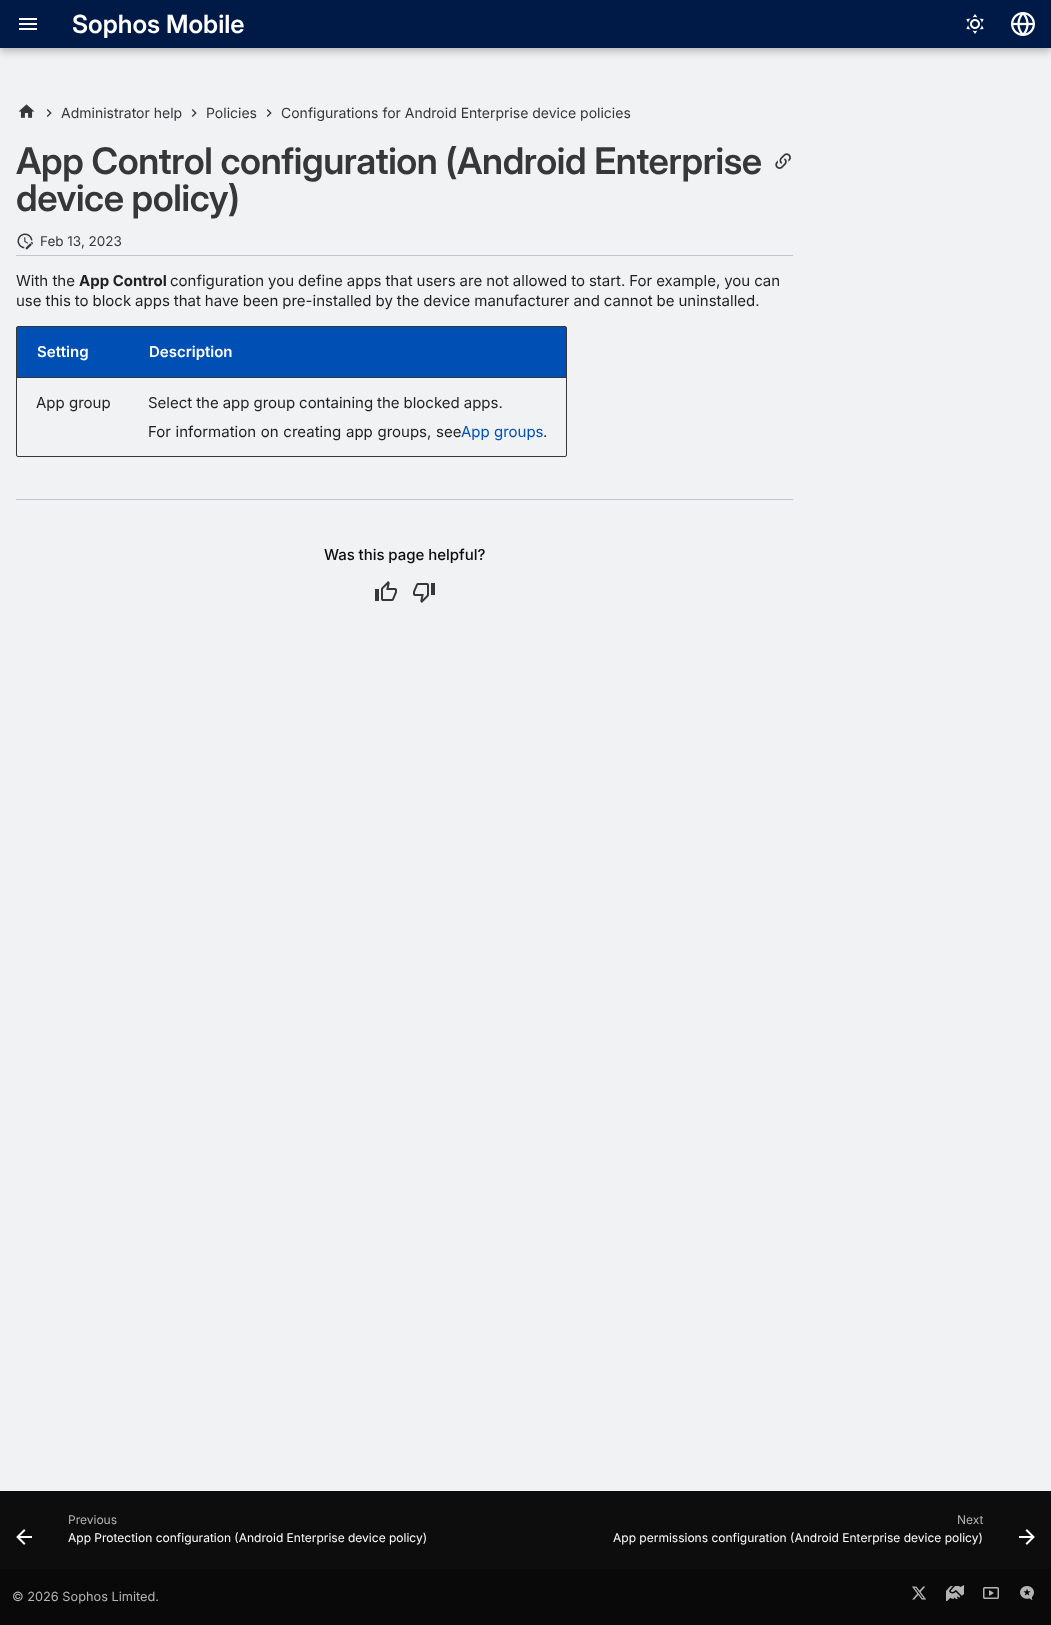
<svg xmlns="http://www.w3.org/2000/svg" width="1051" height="1625">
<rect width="100%" height="100%" fill="#f0f2f4"/>
<rect y="4" width="1051" height="48" fill="#00000033" filter="blur(4px)"/>
<rect width="1051" height="48" fill="#0000001a" filter="blur(2px)"/>
<rect width="1051" height="48" fill="#001a47"/>
<image x="19" y="18" width="18" height="12" href="media/1.png"/>
<text x="72" y="33" style="font-family:'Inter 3';font-size:25px;font-weight:600;fill:#fff">Sophos Mobile</text>
<image x="966" y="14" width="18" height="20" href="media/2.png"/>
<image x="1011" y="12" width="24" height="24" href="media/3.png"/>
<image x="18" y="104" width="17" height="14" href="media/4.png"/>
<image x="46" y="109" width="6" height="8" href="media/5.png"/>
<text x="61" y="118" style="font-family:Inter;font-size:14px;fill:#363738">Administrator help</text>
<image x="191" y="109" width="6" height="8" href="media/5.png"/>
<text x="206" y="118" style="font-family:Inter;font-size:14px;fill:#363738">Policies</text>
<image x="266" y="109" width="6" height="8" href="media/5.png"/>
<text x="281" y="118" style="font-family:Inter;font-size:14px;fill:#363738">Configurations for Android Enterprise device policies</text>
<text x="16" y="174" style="font-family:Inter;font-size:36.7px;font-weight:600;letter-spacing:-0.35px;fill:#363738">App Control configuration (Android Enterprise</text>
<text x="16" y="211" style="font-family:Inter;font-size:36.7px;font-weight:600;letter-spacing:-0.35px;fill:#363738">device policy)</text>
<image x="775" y="153" width="16" height="16" href="media/6.png"/>
<rect x="16" y="255" width="777" height="1" fill="#c2c5ca"/>
<image x="17" y="233" width="17" height="17" href="media/7.png"/>
<text x="40" y="246" style="font-family:Inter;font-size:13.5px;fill:#363738">Feb 13, 2023</text>
<text x="16" y="286" style="font-family:Inter;font-size:15px;fill:#1f1f20">With the</text>
<text x="79" y="286" style="font-family:Inter;font-size:15px;font-weight:bold;fill:#1f1f20">App Control</text>
<text x="170" y="286" word-spacing="-0.25" style="font-family:Inter;font-size:15px;fill:#1f1f20">configuration you define apps that users are not allowed to start. For example, you can</text>
<text x="16" y="306" word-spacing="-0.25" style="font-family:Inter;font-size:15px;fill:#1f1f20">use this to block apps that have been pre-installed by the device manufacturer and cannot be uninstalled.</text>
<rect x="16.5" y="326.5" width="550" height="130" rx="1.5" fill="none" stroke="#363738"/>
<rect x="17.5" y="327.5" width="111" height="49" fill="#004fb5" stroke="#004fb5"/>
<text x="37" y="357" style="font-family:'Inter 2';font-size:15px;font-weight:600;fill:#fff">Setting</text>
<rect x="129.5" y="327.5" width="436" height="49" fill="#004fb5" stroke="#004fb5"/>
<text x="149" y="357" style="font-family:'Inter 2';font-size:15px;font-weight:600;fill:#fff">Description</text>
<rect x="17" y="377" width="549" height="1" fill="#363738"/>
<text x="36" y="408" style="font-family:Inter;font-size:15px;fill:#1f1f20">App group</text>
<text x="148" y="408" word-spacing="-0.25" style="font-family:Inter;font-size:15px;fill:#1f1f20">Select the app group containing the blocked apps.</text>
<text x="148" y="437" word-spacing="0.5" style="font-family:Inter;font-size:15px;fill:#1f1f20">For information on creating app groups, see</text>
<text x="461" y="437" style="font-family:Inter;font-size:15px;fill:#004fb5">App groups</text>
<text x="543" y="437" style="font-family:Inter;font-size:15px;fill:#1f1f20">.</text>
<rect x="16" y="499" width="777" height="1" fill="#c2c5ca"/>
<text x="324" y="560" word-spacing="-0.25" style="font-family:Inter;font-size:15px;font-weight:500;fill:#0d0d0e">Was this page helpful?</text>
<image x="375" y="581" width="22" height="20" href="media/8.png"/>
<image x="413" y="583" width="22" height="20" href="media/9.png"/>
<rect y="1491" width="1051" height="78" fill="#0d0d0e"/>
<image x="16" y="1529" width="16" height="16" href="media/10.png"/>
<text x="68" y="1524" style="font-family:Inter;font-size:12px;fill:#b5b5b6">Previous</text>
<text x="68" y="1542" style="font-family:Inter;font-size:12px;fill:#fff">App Protection configuration (Android Enterprise device policy)</text>
<text x="957" y="1524" style="font-family:Inter;font-size:12px;fill:#b5b5b6">Next</text>
<text x="613" y="1542" style="font-family:Inter;font-size:12px;fill:#fff">App permissions configuration (Android Enterprise device policy)</text>
<image x="1019" y="1529" width="16" height="16" href="media/11.png"/>
<rect y="1569" width="1051" height="56" fill="#09090a"/>
<text x="12" y="1601" style="font-family:Inter;font-size:12.75px;fill:#b5b5b6">© 2026 Sophos Limited.</text>
<image x="912" y="1586" width="14" height="14" href="media/12.png"/>
<image x="946" y="1585" width="18" height="16" href="media/13.png"/>
<image x="983" y="1587" width="16" height="12" href="media/14.png"/>
<image x="1020" y="1586" width="14" height="14" href="media/15.png"/>
</svg>
